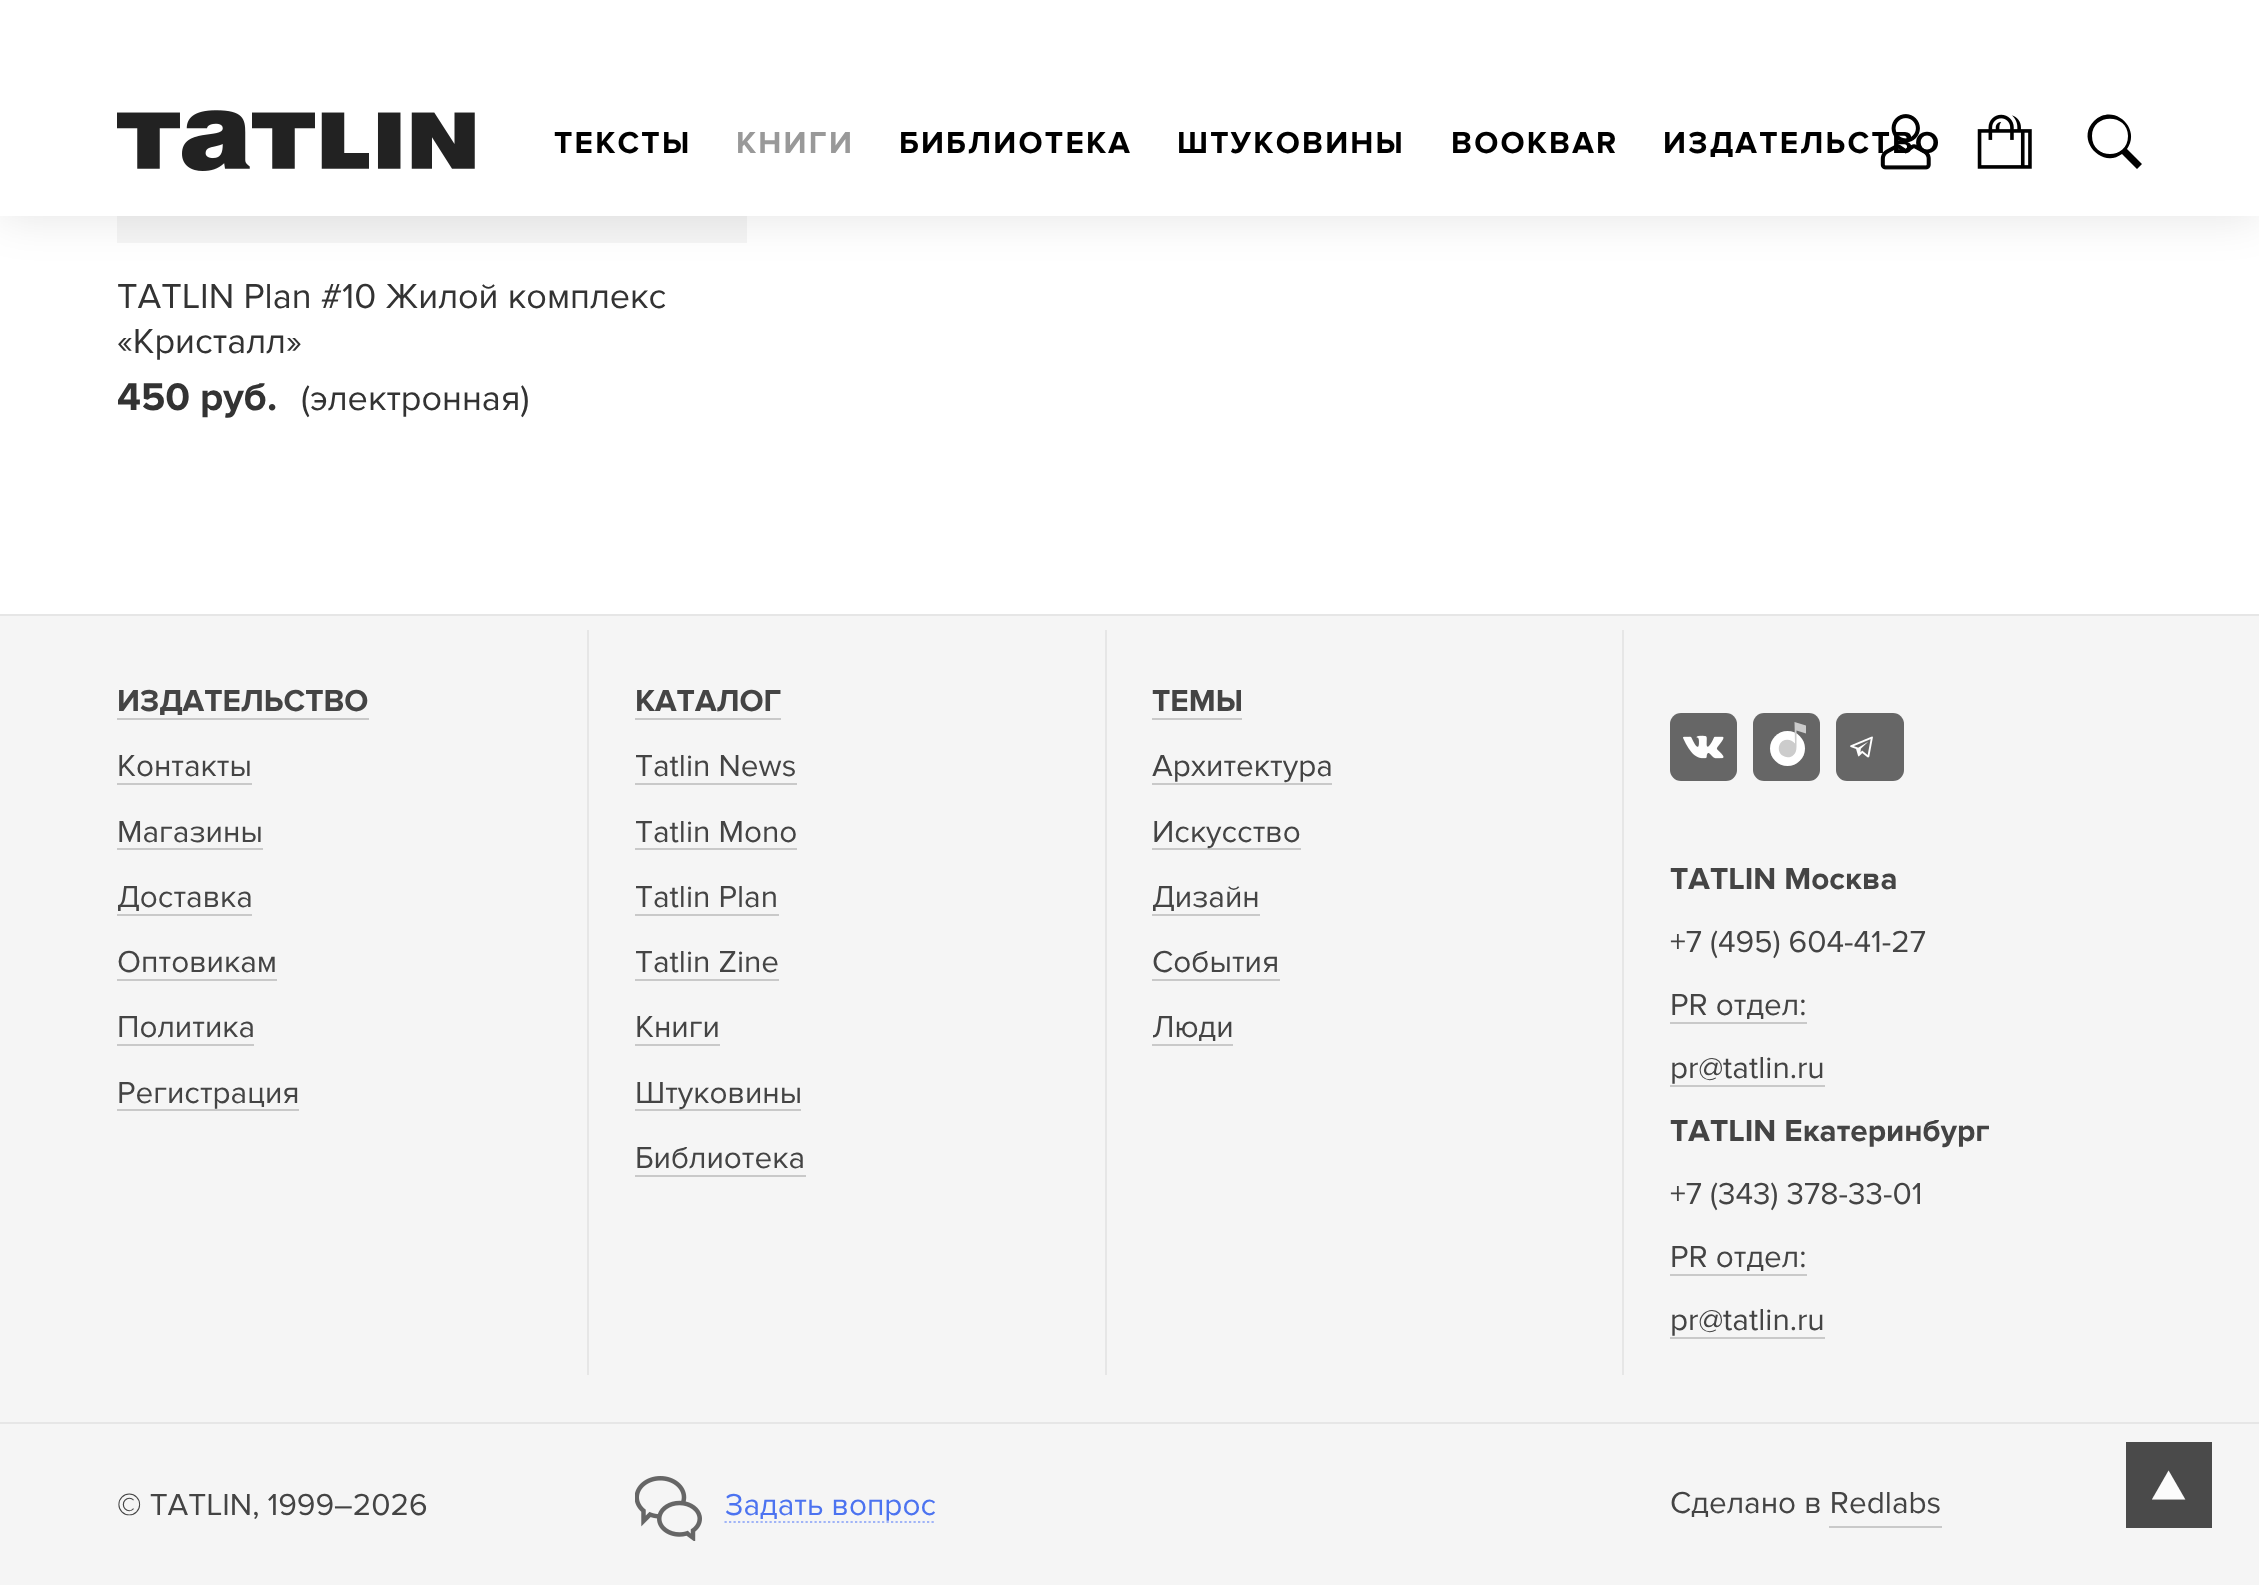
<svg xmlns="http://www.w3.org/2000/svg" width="2259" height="1585">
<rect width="100%" height="100%" fill="#fff"/>
<rect x="117" y="216" width="630" height="27" fill="#f5f5f5"/>
<rect y="2" width="2259" height="216" fill="#0000001a" filter="blur(22.5px)"/>
<rect width="2259" height="216" fill="#fff"/>
<image x="117" y="110" width="358" height="61" href="media/1.png"/>
<text x="554" y="153" style="font-family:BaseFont;font-size:31.5px;font-weight:bold;letter-spacing:2.25px;fill:#000">ТЕКСТЫ</text>
<text x="736" y="153" style="font-family:BaseFont;font-size:31.5px;font-weight:bold;letter-spacing:2.25px;fill:#999">КНИГИ</text>
<text x="899" y="153" style="font-family:BaseFont;font-size:31.5px;font-weight:bold;letter-spacing:2.25px;fill:#000">БИБЛИОТЕКА</text>
<text x="1177" y="153" style="font-family:BaseFont;font-size:31.5px;font-weight:bold;letter-spacing:2.25px;fill:#000">ШТУКОВИНЫ</text>
<text x="1451" y="153" style="font-family:BaseFont;font-size:31.5px;font-weight:bold;letter-spacing:2.25px;fill:#000">BOOKBAR</text>
<text x="1663" y="153" style="font-family:BaseFont;font-size:31.5px;font-weight:bold;letter-spacing:2.25px;fill:#000">ИЗДАТЕЛЬСТВО</text>
<image x="1880" y="114" width="51" height="56" href="media/2.png"/>
<image x="1977" y="114" width="55" height="55" href="media/3.png"/>
<path d="M2142 164l-5 5l-15-15c-20 15-47-14-28-33c19-19 48 7 33 28zm-14-28c0-23-36-23-36 0c0 24 36 24 36 0z" fill="#000"/>
<text x="117" y="308" style="font-family:BaseFont;font-size:36px;fill:#333">TATLIN Plan #10 Жилой комплекс</text>
<text x="117" y="353" style="font-family:BaseFont;font-size:36px;fill:#333">«Кристалл»</text>
<text x="117" y="410" style="font-family:BaseFont;font-size:40px;font-weight:bold;fill:#333">450</text>
<text x="200" y="410" style="font-family:BaseFont;font-size:40px;font-weight:bold;fill:#333">руб.</text>
<text x="301" y="410" style="font-family:BaseFont;font-size:36px;fill:#333">(электронная)</text>
<rect y="616" width="2259" height="969" fill="#f5f5f5"/>
<rect y="614" width="2259" height="2" fill="#e6e6e6"/>
<rect y="1422" width="2259" height="2" fill="#e6e6e6"/>
<rect x="587" y="630" width="2" height="745" fill="#e6e6e6"/>
<text x="117" y="711" style="font-family:BaseFont;font-size:31.5px;font-weight:bold;fill:#444">ИЗДАТЕЛЬСТВО</text>
<rect x="117" y="718" width="252" height="2" fill="#c9c9c9"/>
<text x="117" y="776" style="font-family:BaseFont;font-size:31.5px;fill:#444">Контакты</text>
<rect x="117" y="783" width="135" height="2" fill="#c9c9c9"/>
<text x="117" y="842" style="font-family:BaseFont;font-size:31.5px;fill:#444">Магазины</text>
<rect x="117" y="848" width="146" height="2" fill="#c9c9c9"/>
<text x="117" y="907" style="font-family:BaseFont;font-size:31.5px;fill:#444">Доставка</text>
<rect x="117" y="914" width="135" height="2" fill="#c9c9c9"/>
<text x="117" y="972" style="font-family:BaseFont;font-size:31.5px;fill:#444">Оптовикам</text>
<rect x="117" y="979" width="160" height="2" fill="#c9c9c9"/>
<text x="117" y="1037" style="font-family:BaseFont;font-size:31.5px;fill:#444">Политика</text>
<rect x="117" y="1044" width="137" height="2" fill="#c9c9c9"/>
<text x="117" y="1103" style="font-family:BaseFont;font-size:31.5px;fill:#444">Регистрация</text>
<rect x="117" y="1109" width="182" height="2" fill="#c9c9c9"/>
<rect x="1105" y="630" width="2" height="745" fill="#e6e6e6"/>
<text x="635" y="711" style="font-family:BaseFont;font-size:31.5px;font-weight:bold;fill:#444">КАТАЛОГ</text>
<rect x="635" y="718" width="146" height="2" fill="#c9c9c9"/>
<text x="635" y="776" style="font-family:BaseFont;font-size:31.5px;fill:#444">Tatlin News</text>
<rect x="635" y="783" width="162" height="2" fill="#c9c9c9"/>
<text x="635" y="842" style="font-family:BaseFont;font-size:31.5px;fill:#444">Tatlin Mono</text>
<rect x="635" y="848" width="162" height="2" fill="#c9c9c9"/>
<text x="635" y="907" style="font-family:BaseFont;font-size:31.5px;fill:#444">Tatlin Plan</text>
<rect x="635" y="914" width="144" height="2" fill="#c9c9c9"/>
<text x="635" y="972" style="font-family:BaseFont;font-size:31.5px;fill:#444">Tatlin Zine</text>
<rect x="635" y="979" width="144" height="2" fill="#c9c9c9"/>
<text x="635" y="1037" style="font-family:BaseFont;font-size:31.5px;fill:#444">Книги</text>
<rect x="635" y="1044" width="85" height="2" fill="#c9c9c9"/>
<rect x="635" y="1109" width="166" height="2" fill="#c9c9c9"/>
<text x="635" y="1103" style="font-family:BaseFont;font-size:31.5px;fill:#444">Штуковины</text>
<text x="635" y="1168" style="font-family:BaseFont;font-size:31.5px;fill:#444">Библиотека</text>
<rect x="635" y="1175" width="171" height="2" fill="#c9c9c9"/>
<rect x="1622" y="630" width="2" height="745" fill="#e6e6e6"/>
<text x="1152" y="711" style="font-family:BaseFont;font-size:31.5px;font-weight:bold;fill:#444">ТЕМЫ</text>
<rect x="1152" y="718" width="90" height="2" fill="#c9c9c9"/>
<text x="1152" y="776" style="font-family:BaseFont;font-size:31.5px;fill:#444">Архитектура</text>
<rect x="1152" y="783" width="180" height="2" fill="#c9c9c9"/>
<rect x="1152" y="848" width="149" height="2" fill="#c9c9c9"/>
<text x="1152" y="842" style="font-family:BaseFont;font-size:31.5px;fill:#444">Искусство</text>
<text x="1152" y="907" style="font-family:BaseFont;font-size:31.5px;fill:#444">Дизайн</text>
<rect x="1152" y="914" width="108" height="2" fill="#c9c9c9"/>
<text x="1152" y="972" style="font-family:BaseFont;font-size:31.5px;fill:#444">События</text>
<rect x="1152" y="979" width="128" height="2" fill="#c9c9c9"/>
<text x="1152" y="1037" style="font-family:BaseFont;font-size:31.5px;fill:#444">Люди</text>
<rect x="1152" y="1044" width="81" height="2" fill="#c9c9c9"/>
<rect x="1670" y="713" width="67" height="68" rx="11" fill="#666"/>
<image x="1683" y="735" width="41" height="24" href="media/4.png"/>
<rect x="1753" y="713" width="67" height="68" rx="11" fill="#666"/>
<circle cx="1787.5" cy="748.5" r="17.5" fill="#fff"/>
<path d="M1796.5 730.5v16.5c0 15.5-20 12-17.5-.5c.5-2 1.5-4 3.5-5.5c4-2.5 9.5-1.5 12.5 2.5l-.5-21.5l11.5 3.5v8z" fill="#ccc"/>
<rect x="1836" y="713" width="68" height="68" rx="11" fill="#666"/>
<image x="1850" y="736" width="23" height="22" href="media/5.png"/>
<text x="1670" y="889" style="font-family:BaseFont;font-size:31.5px;font-weight:bold;fill:#444">TATLIN Москва</text>
<text x="1670" y="952" style="font-family:BaseFont;font-size:31.5px;fill:#444">+7 (495) 604-41-27</text>
<text x="1670" y="1015" style="font-family:BaseFont;font-size:31.5px;fill:#444">PR отдел:</text>
<rect x="1670" y="1022" width="137" height="2" fill="#c9c9c9"/>
<text x="1670" y="1078" style="font-family:BaseFont;font-size:31.5px;fill:#444">pr@tatlin.ru</text>
<rect x="1670" y="1085" width="155" height="2" fill="#c9c9c9"/>
<text x="1670" y="1141" style="font-family:BaseFont;font-size:31.5px;font-weight:bold;fill:#444">TATLIN Екатеринбург</text>
<text x="1670" y="1204" style="font-family:BaseFont;font-size:31.5px;fill:#444">+7 (343) 378-33-01</text>
<text x="1670" y="1267" style="font-family:BaseFont;font-size:31.5px;fill:#444">PR отдел:</text>
<rect x="1670" y="1274" width="137" height="2" fill="#c9c9c9"/>
<text x="1670" y="1330" style="font-family:BaseFont;font-size:31.5px;fill:#444">pr@tatlin.ru</text>
<rect x="1670" y="1337" width="155" height="2" fill="#c9c9c9"/>
<text x="117" y="1515" style="font-family:BaseFont;font-size:31.5px;fill:#444">© TATLIN, 1999–2026</text>
<image x="635" y="1476" width="67" height="65" href="media/6.png"/>
<path d="M724.5 1522h211.5" fill="none" stroke="#a0b4f7" stroke-width="2.2" stroke-dasharray="2.25 2.25"/>
<text x="725" y="1515" style="font-family:BaseFont;font-size:31.5px;fill:#4c73f0">Задать вопрос</text>
<text x="1670" y="1513" style="font-family:BaseFont;font-size:31.5px;fill:#444">Сделано в Redlabs</text>
<rect x="1829" y="1526" width="113" height="2" fill="#c9c9c9"/>
<rect x="2126" y="1442" width="86" height="86" fill="#4a4a4a"/>
<text x="2152" y="1501" style="font-family:BaseFont;font-size:54px;fill:#fcfcfc">▲</text>
</svg>
